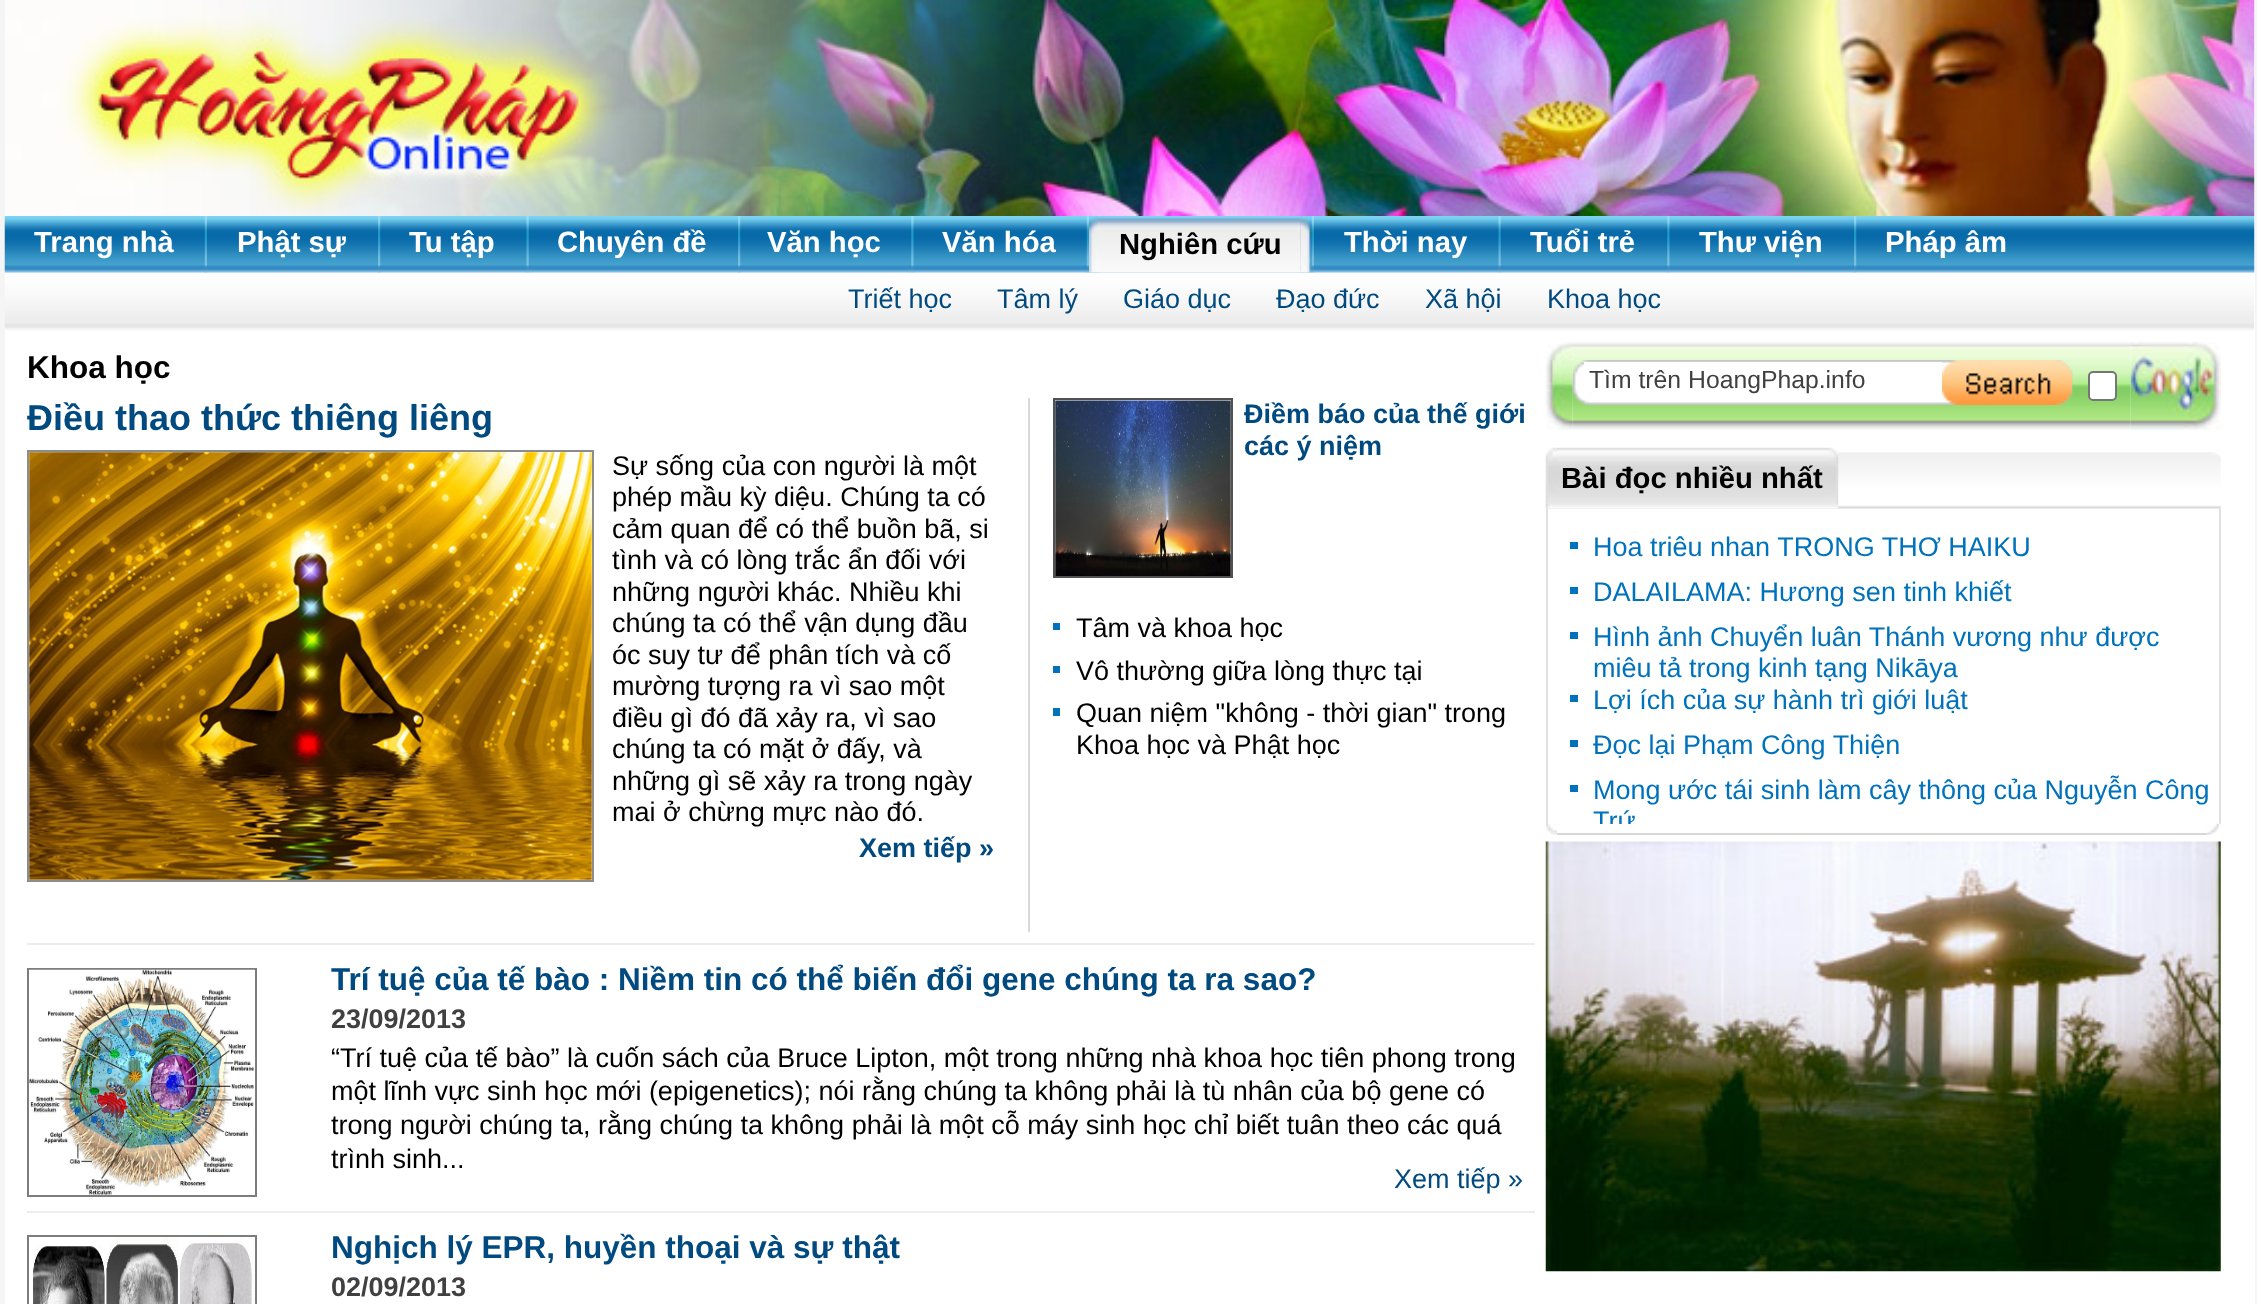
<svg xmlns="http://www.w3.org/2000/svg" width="2257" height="1304">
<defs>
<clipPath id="clip1"><rect x="1548" y="509" width="671" height="315"/></clipPath>
</defs>
<rect width="100%" height="100%" fill="#f5f5f5"/>
<rect x="5" width="2250" height="1304" fill="#fff"/>
<image x="5" y="0" width="2250" height="216" href="media/1.png"/>
<image x="4" y="216" width="2251" height="115" href="media/2.png"/>
<text x="34" y="252" style="font-family:Liberation Sans;font-size:29.25px;font-weight:bold;fill:#fff">Trang nhà</text>
<image x="204" y="216" width="3" height="57" href="media/3.png"/>
<text x="237" y="252" style="font-family:Liberation Sans;font-size:29.25px;font-weight:bold;fill:#fff">Phật sự</text>
<image x="378" y="216" width="3" height="57" href="media/4.png"/>
<text x="409" y="252" style="font-family:Liberation Sans;font-size:29.25px;font-weight:bold;fill:#fff">Tu tập</text>
<image x="526" y="216" width="3" height="57" href="media/5.png"/>
<text x="557" y="252" style="font-family:Liberation Sans;font-size:29.25px;font-weight:bold;fill:#fff">Chuyên đề</text>
<image x="738" y="216" width="3" height="57" href="media/4.png"/>
<text x="767" y="252" style="font-family:Liberation Sans;font-size:29.25px;font-weight:bold;fill:#fff">Văn học</text>
<image x="911" y="216" width="3" height="57" href="media/6.png"/>
<text x="942" y="252" style="font-family:Liberation Sans;font-size:29.25px;font-weight:bold;fill:#fff">Văn hóa</text>
<image x="1086" y="216" width="3" height="57" href="media/3.png"/>
<image x="1089" y="216" width="9" height="57" href="media/7.png"/>
<image x="1098" y="216" width="203" height="57" href="media/8.png"/>
<image x="1098" y="218" width="203" height="55" href="media/9.png"/>
<text x="1119" y="254" style="font-family:Liberation Sans;font-size:29.25px;font-weight:bold;fill:#000">Nghiên cứu</text>
<image x="1300" y="216" width="12" height="57" href="media/10.png"/>
<image x="1311" y="216" width="3" height="57" href="media/11.png"/>
<text x="1344" y="252" style="font-family:Liberation Sans;font-size:29.25px;font-weight:bold;fill:#fff">Thời nay</text>
<image x="1498" y="216" width="3" height="57" href="media/5.png"/>
<text x="1530" y="252" style="font-family:Liberation Sans;font-size:29.25px;font-weight:bold;fill:#fff">Tuổi trẻ</text>
<image x="1667" y="216" width="3" height="57" href="media/6.png"/>
<text x="1699" y="252" style="font-family:Liberation Sans;font-size:29.25px;font-weight:bold;fill:#fff">Thư viện</text>
<image x="1854" y="216" width="3" height="57" href="media/4.png"/>
<text x="1885" y="252" style="font-family:Liberation Sans;font-size:29.25px;font-weight:bold;fill:#fff">Pháp âm</text>
<text x="848" y="308" style="font-family:Liberation Sans;font-size:27px;fill:#004a80">Triết học</text>
<text x="997" y="308" style="font-family:Liberation Sans;font-size:27px;fill:#004a80">Tâm lý</text>
<text x="1123" y="308" style="font-family:Liberation Sans;font-size:27px;fill:#004a80">Giáo dục</text>
<text x="1276" y="308" style="font-family:Liberation Sans;font-size:27px;fill:#004a80">Đạo đức</text>
<text x="1425" y="308" style="font-family:Liberation Sans;font-size:27px;fill:#004a80">Xã hội</text>
<text x="1547" y="308" style="font-family:Liberation Sans;font-size:27px;fill:#004a80">Khoa học</text>
<text x="27" y="378" style="font-family:Liberation Sans;font-size:31.5px;font-weight:bold;fill:#000">Khoa học</text>
<text x="27" y="430" style="font-family:Liberation Sans;font-size:36px;font-weight:bold;fill:#004a80">Điều thao thức thiêng liêng</text>
<rect x="28" y="451" width="565" height="430" fill="none" stroke="#8c8c8c" stroke-width="2"/>
<image x="29" y="452" width="563" height="428" href="media/12.png"/>
<text x="612" y="475" style="font-family:Liberation Sans;font-size:27px;fill:#000">Sự sống của con người là một</text>
<text x="612" y="506" style="font-family:Liberation Sans;font-size:27px;fill:#000">phép mầu kỳ diệu. Chúng ta có</text>
<text x="612" y="538" style="font-family:Liberation Sans;font-size:27px;fill:#000">cảm quan để có thể buồn bã, si</text>
<text x="612" y="569" style="font-family:Liberation Sans;font-size:27px;fill:#000">tình và có lòng trắc ẩn đối với</text>
<text x="612" y="601" style="font-family:Liberation Sans;font-size:27px;fill:#000">những người khác. Nhiều khi</text>
<text x="612" y="632" style="font-family:Liberation Sans;font-size:27px;fill:#000">chúng ta có thể vận dụng đầu</text>
<text x="612" y="664" style="font-family:Liberation Sans;font-size:27px;fill:#000">óc suy tư để phân tích và cố</text>
<text x="612" y="695" style="font-family:Liberation Sans;font-size:27px;fill:#000">mường tượng ra vì sao một</text>
<text x="612" y="727" style="font-family:Liberation Sans;font-size:27px;fill:#000">điều gì đó đã xảy ra, vì sao</text>
<text x="612" y="758" style="font-family:Liberation Sans;font-size:27px;fill:#000">chúng ta có mặt ở đấy, và</text>
<text x="612" y="790" style="font-family:Liberation Sans;font-size:27px;fill:#000">những gì sẽ xảy ra trong ngày</text>
<text x="612" y="821" style="font-family:Liberation Sans;font-size:27px;fill:#000">mai ở chừng mực nào đó.</text>
<text x="859" y="857" style="font-family:Liberation Sans;font-size:27px;font-weight:bold;fill:#004a80">Xem tiếp »</text>
<rect x="1028" y="398" width="2" height="534" fill="#d9d9d9"/>
<rect x="1054" y="399" width="178" height="178" fill="none" stroke="#515151" stroke-width="2"/>
<image x="1055" y="400" width="176" height="176" href="media/13.png"/>
<text x="1244" y="423" style="font-family:Liberation Sans;font-size:27px;font-weight:bold;fill:#004a80">Điềm báo của thế giới</text>
<text x="1244" y="455" style="font-family:Liberation Sans;font-size:27px;font-weight:bold;fill:#004a80">các ý niệm</text>
<rect x="1053" y="623" width="7" height="7" fill="#0072bb"/>
<text x="1076" y="637" style="font-family:Liberation Sans;font-size:27px;fill:#000">Tâm và khoa học</text>
<rect x="1053" y="666" width="7" height="7" fill="#0072bb"/>
<text x="1076" y="680" style="font-family:Liberation Sans;font-size:27px;fill:#000">Vô thường giữa lòng thực tại</text>
<rect x="1053" y="708" width="7" height="8" fill="#0072bb"/>
<text x="1076" y="722" style="font-family:Liberation Sans;font-size:27px;fill:#000">Quan niệm "không - thời gian" trong</text>
<text x="1076" y="754" style="font-family:Liberation Sans;font-size:27px;fill:#000">Khoa học và Phật học</text>
<rect x="27" y="943" width="1508" height="2" fill="#ececec"/>
<rect x="28" y="969" width="228" height="227" fill="none" stroke="#7d7d7d" stroke-width="2"/>
<image x="29" y="969" width="226" height="226" href="media/14.png"/>
<text x="331" y="990" style="font-family:Liberation Sans;font-size:31.5px;font-weight:bold;fill:#004a80">Trí tuệ của tế bào : Niềm tin có thể biến đổi gene chúng ta ra sao?</text>
<text x="331" y="1028" style="font-family:Liberation Sans;font-size:27px;font-weight:bold;fill:#404040">23/09/2013</text>
<text x="331" y="1067" style="font-family:Liberation Sans;font-size:27px;fill:#000">“Trí tuệ của tế bào” là cuốn sách của Bruce Lipton, một trong những nhà khoa học tiên phong trong</text>
<text x="331" y="1100" style="font-family:Liberation Sans;font-size:27px;fill:#000">một lĩnh vực sinh học mới (epigenetics); nói rằng chúng ta không phải là tù nhân của bộ gene có</text>
<text x="331" y="1134" style="font-family:Liberation Sans;font-size:27px;fill:#000">trong người chúng ta, rằng chúng ta không phải là một cỗ máy sinh học chỉ biết tuân theo các quá</text>
<text x="331" y="1168" style="font-family:Liberation Sans;font-size:27px;fill:#000">trình sinh...</text>
<text x="1394" y="1188" style="font-family:Liberation Sans;font-size:27px;fill:#004a80">Xem tiếp »</text>
<rect x="27" y="1211" width="1508" height="2" fill="#ececec"/>
<rect x="28" y="1236" width="228" height="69" fill="none" stroke="#7d7d7d" stroke-width="2"/>
<image x="33" y="1237" width="221" height="67" href="media/15.png"/>
<text x="331" y="1258" style="font-family:Liberation Sans;font-size:31.5px;font-weight:bold;fill:#004a80">Nghịch lý EPR, huyền thoại và sự thật</text>
<text x="331" y="1296" style="font-family:Liberation Sans;font-size:27px;font-weight:bold;fill:#404040">02/09/2013</text>
<image x="1545" y="342" width="28" height="88" href="media/16.png"/>
<image x="1572" y="342" width="559" height="88" href="media/17.png"/>
<image x="1572" y="360" width="501" height="45" href="media/18.png"/>
<rect x="1584" y="362" width="358" height="24" fill="#fff"/>
<text x="1589" y="388" style="font-family:Liberation Sans;font-size:24.75px;fill:#404040">Tìm trên HoangPhap.info</text>
<image x="1941" y="360" width="132" height="45" href="media/19.png"/>
<rect x="2089" y="372" width="27" height="28" rx="4" fill="#fff" stroke="#767676" stroke-width="2"/>
<image x="2130" y="342" width="91" height="88" href="media/20.png"/>
<image x="1545" y="452" width="676" height="57" href="media/21.png"/>
<image x="1545" y="447" width="12" height="62" href="media/22.png"/>
<image x="1557" y="447" width="270" height="62" href="media/23.png"/>
<text x="1561" y="488" style="font-family:Liberation Sans;font-size:29.25px;font-weight:bold;fill:#000">Bài đọc nhiều nhất</text>
<image x="1827" y="447" width="12" height="62" href="media/24.png"/>
<rect x="2219" y="509" width="2" height="315" fill="#e0e0e0"/>
<rect x="1546" y="509" width="2" height="315" fill="#e0e0e0"/>
<rect x="1570" y="542" width="8" height="7" fill="#0072bb"/>
<text x="1593" y="556" style="font-family:Liberation Sans;font-size:27px;fill:#0072bc">Hoa triêu nhan TRONG THƠ HAIKU</text>
<rect x="1570" y="587" width="8" height="7" fill="#0072bb"/>
<text x="1593" y="601" style="font-family:Liberation Sans;font-size:27px;fill:#0072bc">DALAILAMA: Hương sen tinh khiết</text>
<rect x="1570" y="632" width="8" height="7" fill="#0072bb"/>
<text x="1593" y="646" style="font-family:Liberation Sans;font-size:27px;fill:#0072bc">Hình ảnh Chuyển luân Thánh vương như được</text>
<text x="1593" y="677" style="font-family:Liberation Sans;font-size:27px;fill:#0072bc">miêu tả trong kinh tạng Nikāya</text>
<rect x="1570" y="695" width="8" height="7" fill="#0072bb"/>
<text x="1593" y="709" style="font-family:Liberation Sans;font-size:27px;fill:#0072bc">Lợi ích của sự hành trì giới luật</text>
<rect x="1570" y="740" width="8" height="7" fill="#0072bb"/>
<text x="1593" y="754" style="font-family:Liberation Sans;font-size:27px;fill:#0072bc">Đọc lại Phạm Công Thiện</text>
<rect x="1570" y="785" width="8" height="7" fill="#0072bb"/>
<text x="1593" y="799" style="font-family:Liberation Sans;font-size:27px;fill:#0072bc">Mong ước tái sinh làm cây thông của Nguyễn Công</text>
<g clip-path="url(#clip1)">
<text x="1593" y="830" style="font-family:Liberation Sans;font-size:27px;fill:#0072bc">Trứ</text>
</g>
<image x="1546" y="823" width="11" height="12" href="media/25.png"/>
<rect x="1557" y="833" width="650" height="2" fill="#d7d7d7"/>
<image x="2207" y="823" width="14" height="12" href="media/26.png"/>
<image x="1545" y="841" width="676" height="431" href="media/27.png"/>
</svg>
